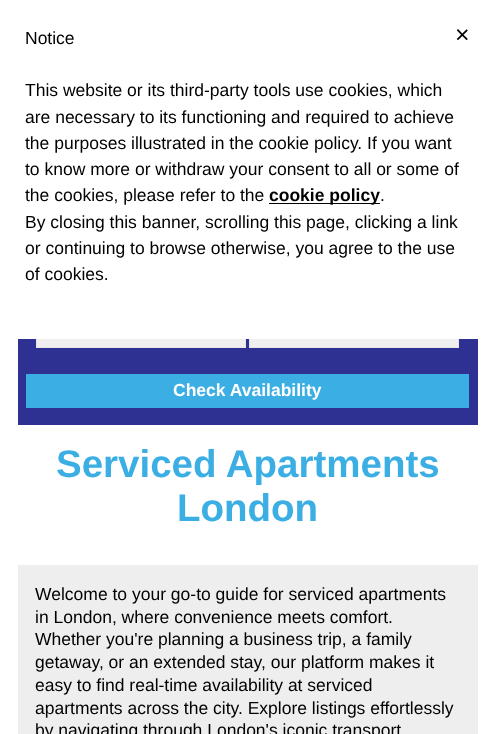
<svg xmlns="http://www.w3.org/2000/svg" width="495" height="734">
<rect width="100%" height="100%" fill="#fff"/>
<rect x="18" y="339" width="460" height="86" fill="#2e3192"/>
<rect x="37" y="339" width="208" height="8" fill="#efefef"/>
<rect x="36.5" y="314.5" width="209" height="33" fill="none" stroke="#e5e5e5"/>
<rect x="250" y="339" width="208" height="8" fill="#efefef"/>
<rect x="249.5" y="314.5" width="209" height="33" fill="none" stroke="#e5e5e5"/>
<rect x="36" y="314" width="423" height="25" fill="#fff"/>
<text x="25" y="44" style="font-family:Liberation Sans;font-size:17.5px;fill:#000">Notice</text>
<text x="25" y="96" style="font-family:Liberation Sans;font-size:17.5px;fill:#000">This website or its third-party tools use cookies, which</text>
<text x="25" y="123" style="font-family:Liberation Sans;font-size:17.5px;fill:#000">are necessary to its functioning and required to achieve</text>
<text x="25" y="149" style="font-family:Liberation Sans;font-size:17.5px;fill:#000">the purposes illustrated in the cookie policy. If you want</text>
<text x="25" y="175" style="font-family:Liberation Sans;font-size:17.5px;fill:#000">to know more or withdraw your consent to all or some of</text>
<text x="25" y="201" style="font-family:Liberation Sans;font-size:17.5px;fill:#000">the cookies, please refer to the</text>
<rect x="269" y="203" width="111" height="1" fill="#000"/>
<text x="269" y="201" style="font-family:Liberation Sans;font-size:17.5px;font-weight:bold;fill:#000">cookie policy</text>
<text x="380" y="201" style="font-family:Liberation Sans;font-size:17.5px;fill:#000">.</text>
<text x="25" y="228" style="font-family:Liberation Sans;font-size:17.5px;fill:#000">By closing this banner, scrolling this page, clicking a link</text>
<text x="25" y="254" style="font-family:Liberation Sans;font-size:17.5px;fill:#000">or continuing to browse otherwise, you agree to the use</text>
<text x="25" y="280" style="font-family:Liberation Sans;font-size:17.5px;fill:#000">of cookies.</text>
<text x="455" y="43" style="font-family:Liberation Sans;font-size:25px;fill:#000">×</text>
<rect x="26" y="374" width="443" height="34" fill="#3baee3"/>
<text x="173" y="396" style="font-family:Liberation Sans;font-size:17.5px;font-weight:bold;fill:#fff">Check Availability</text>
<text x="56" y="477" style="font-family:Liberation Sans;font-size:38.5px;font-weight:bold;fill:#3baee3">Serviced Apartments</text>
<text x="177" y="521" style="font-family:Liberation Sans;font-size:38.5px;font-weight:bold;fill:#3baee3">London</text>
<rect x="18" y="565" width="460" height="169" fill="#eee"/>
<text x="35" y="600" style="font-family:Liberation Sans;font-size:17.5px;fill:#000">Welcome to your go-to guide for serviced apartments</text>
<text x="35" y="623" style="font-family:Liberation Sans;font-size:17.5px;fill:#000">in London, where convenience meets comfort.</text>
<text x="35" y="645" style="font-family:Liberation Sans;font-size:17.5px;fill:#000">Whether you're planning a business trip, a family</text>
<text x="35" y="668" style="font-family:Liberation Sans;font-size:17.5px;fill:#000">getaway, or an extended stay, our platform makes it</text>
<text x="35" y="691" style="font-family:Liberation Sans;font-size:17.5px;fill:#000">easy to find real-time availability at serviced</text>
<text x="35" y="714" style="font-family:Liberation Sans;font-size:17.5px;fill:#000">apartments across the city. Explore listings effortlessly</text>
<text x="35" y="736" style="font-family:Liberation Sans;font-size:17.5px;fill:#000">by navigating through London's iconic transport</text>
</svg>
